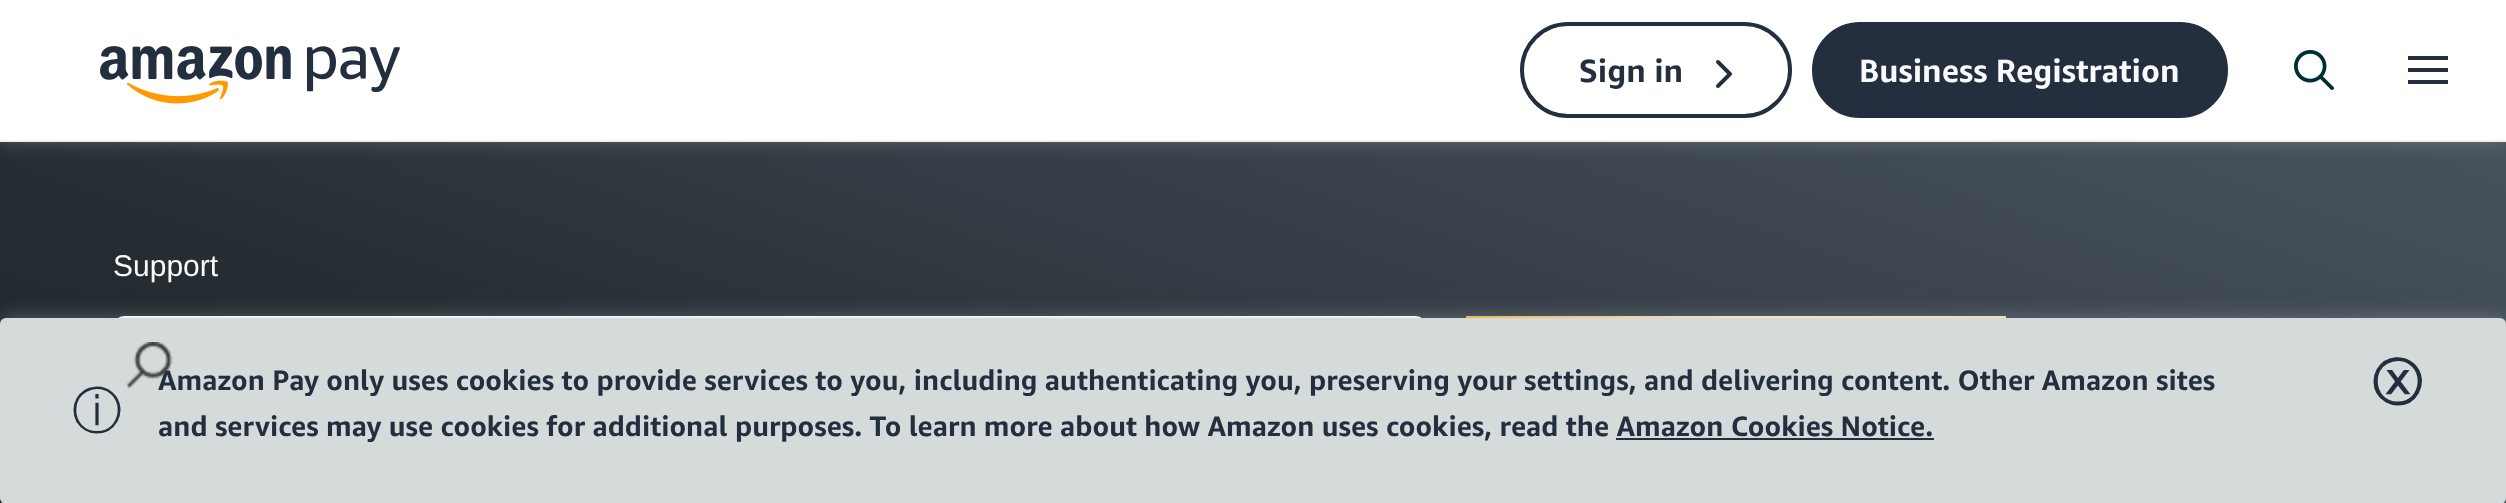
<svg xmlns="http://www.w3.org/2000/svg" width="2506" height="503">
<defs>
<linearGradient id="g1" gradientUnits="userSpaceOnUse" x1="1050" y1="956" x2="1456" y2="-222"><stop offset="0" stop-color="#1b2126"/><stop offset="0.32" stop-color="#262e34"/><stop offset="0.68" stop-color="#3a434c"/><stop offset="1" stop-color="#48525c"/></linearGradient>
<linearGradient id="g2" gradientUnits="userSpaceOnUse" x1="1667" y1="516" x2="1805" y2="222"><stop offset="0.27" stop-color="#ffb52e"/><stop offset="0.64" stop-color="#ffeccb"/><stop offset="0.9" stop-color="#ffeccb"/><stop offset="1" stop-color="#ffe2b3"/></linearGradient>
</defs>
<rect width="100%" height="100%" fill="#fff"/>
<rect y="142" width="2506" height="361" fill="url(#g1)"/>
<rect width="2506" height="140" fill="#a9b6b766" filter="blur(10px)"/>
<rect width="2506" height="140" fill="#fff"/>
<rect y="140" width="2506" height="2" fill="#f0f0f0"/>
<image x="100" y="46" width="300" height="58" href="media/1.png"/>
<rect x="1522" y="24" width="268" height="92" rx="46" fill="none" stroke="#232f3e" stroke-width="4"/>
<text x="1579" y="82" style="font-family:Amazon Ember;font-size:32px;font-weight:bold;fill:#232f3e">Sign in</text>
<image x="1716" y="60" width="16" height="28" href="media/2.png"/>
<rect x="1814" y="24" width="412" height="92" rx="46" fill="#232f3e" stroke="#232f3e" stroke-width="4"/>
<text x="1859" y="82" style="font-family:Amazon Ember;font-size:32px;font-weight:bold;fill:#fafafa">Business Registration</text>
<image x="2294" y="50" width="40" height="40" href="media/3.png"/>
<rect x="2408" y="56" width="40" height="4" fill="#232f3e"/>
<rect x="2408" y="68" width="40" height="4" fill="#232f3e"/>
<rect x="2408" y="80" width="40" height="4" fill="#232f3e"/>
<text x="113" y="276" style="font-family:Liberation Sans;font-size:30px;fill:#fafafa">Support</text>
<rect x="114" y="316" width="1312" height="104" rx="10" fill="#fff"/>
<rect x="1466" y="316" width="540" height="2" fill="url(#g2)"/>
<rect y="318" width="2506" height="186" rx="6" fill="#aab7b866" filter="blur(10px)"/>
<rect y="318" width="2506" height="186" rx="6" fill="#d5dbdb"/>
<text x="158" y="390" style="font-family:Amazon Ember;font-size:28px;font-weight:bold;fill:#232f3e">Amazon Pay only uses cookies to provide services to you, including authenticating you, preserving your settings, and delivering content. Other Amazon sites</text>
<image x="126" y="342" width="47" height="47" href="media/4.png"/>
<text x="72" y="428" style="font-family:WenQuanYi Zen Hei;font-size:50px;font-weight:500;fill:#232f3e">ⓘ</text>
<text x="158" y="436" style="font-family:Amazon Ember;font-size:28px;font-weight:bold;fill:#232f3e">and services may use cookies for additional purposes. To learn more about how Amazon uses cookies, read the Amazon Cookies Notice.</text>
<rect x="1616" y="438" width="318" height="2" fill="#232f3e"/>
<text x="2372" y="400" style="font-family:WenQuanYi Zen Hei;font-size:50px;font-weight:bold;letter-spacing:4px;fill:#232f3e">ⓧ</text>
</svg>
